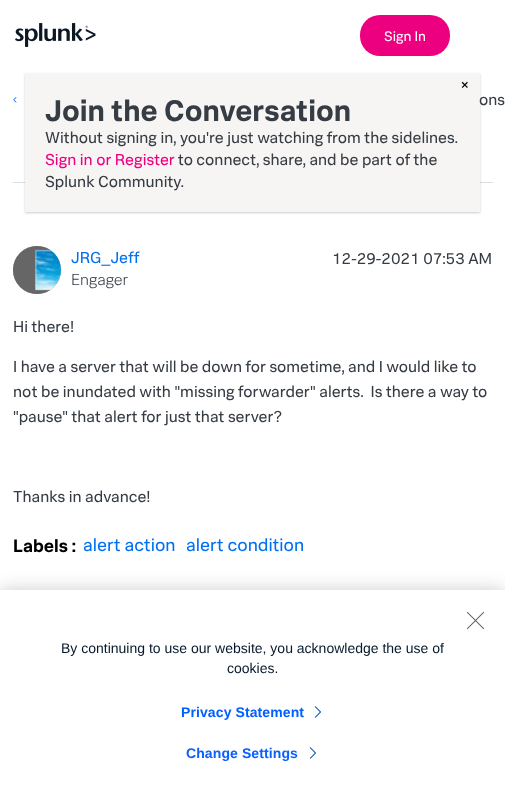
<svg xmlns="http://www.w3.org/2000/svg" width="505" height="800">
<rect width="100%" height="100%" fill="#fff"/>
<image x="15" y="23" width="81" height="24" href="media/1.png"/>
<rect x="360" y="15" width="90" height="41" rx="20" fill="#ed0080"/>
<text x="384" y="41" style="font-family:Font;font-size:14px;fill:#fff">Sign In</text>
<rect x="13" y="182" width="480" height="1" fill="#dadde1"/>
<rect x="25" y="74" width="455" height="139" fill="#00000033" filter="blur(1px)"/>
<rect x="25" y="73" width="455" height="139" fill="#f7f4f4"/>
<text x="460" y="90" style="font-family:Font;font-size:16px;fill:#000">×</text>
<text x="45" y="121" style="font-family:Font;font-size:30px;font-weight:bold;fill:#363c44">Join the Conversation</text>
<text x="45" y="143" style="font-family:Font;font-size:16px;fill:#363c44">Without signing in, you're just watching from the sidelines.</text>
<text x="45" y="165" style="font-family:Font;font-size:16px;fill:#ed0080">Sign in or Register</text>
<text x="178" y="165" style="font-family:Font;font-size:16px;fill:#363c44">to connect, share, and be part of the</text>
<text x="45" y="187" style="font-family:Font;font-size:16px;fill:#363c44">Splunk Community.</text>
<image x="13" y="97" width="4" height="6" href="media/2.png"/>
<text x="479" y="105" style="font-family:Font;font-size:16px;fill:#363c44">ons</text>
<rect x="13" y="246" width="48" height="48" rx="24" fill="#999" filter="blur(0.5px)"/>
<image x="13" y="246" width="48" height="48" href="media/3.png"/>
<text x="71" y="263" style="font-family:Font;font-size:16px;fill:#0070f3">JRG_Jeff</text>
<text x="71" y="285" style="font-family:Font;font-size:16px;font-weight:300;fill:#363c44">Engager</text>
<text x="332" y="264" style="font-family:Font;font-size:16px;fill:#363c44">12-29-2021 07:53 AM</text>
<text x="13" y="332" style="font-family:Font;font-size:16px;fill:#363c44">Hi there!</text>
<text x="13" y="372" style="font-family:Font;font-size:16px;fill:#363c44">I have a server that will be down for sometime, and I would like to</text>
<text x="13" y="397" style="font-family:Font;font-size:16px;fill:#363c44" xml:space="preserve">not be inundated with "missing forwarder" alerts.  Is there a way to</text>
<text x="13" y="422" style="font-family:Font;font-size:16px;fill:#363c44">"pause" that alert for just that server?</text>
<text x="13" y="502" style="font-family:Font;font-size:16px;fill:#363c44">Thanks in advance!</text>
<text x="13" y="552" style="font-family:Font;font-size:18px;font-weight:bold;fill:#000">Labels :</text>
<text x="83" y="551" style="font-family:Font;font-size:18px;fill:#0070f3">alert action</text>
<text x="186" y="551" style="font-family:Font;font-size:18px;fill:#0070f3">alert condition</text>
<rect y="590" width="505" height="210" fill="#00000033" filter="blur(9px)"/>
<rect y="590" width="505" height="210" fill="#fff"/>
<image x="466" y="611" width="19" height="19" href="media/4.png"/>
<text x="61" y="653" style="font-family:Liberation Sans;font-size:14px;fill:#07182d">By continuing to use our website, you acknowledge the use of</text>
<text x="227" y="673" style="font-family:Liberation Sans;font-size:14px;fill:#07182d">cookies.</text>
<text x="181" y="717" style="font-family:Liberation Sans;font-size:14px;font-weight:bold;letter-spacing:0.1px;fill:#0060ff">Privacy Statement</text>
<image x="314" y="706" width="7" height="12" href="media/5.png"/>
<text x="186" y="758" style="font-family:Liberation Sans;font-size:14px;font-weight:bold;letter-spacing:0.1px;fill:#0a60ff">Change Settings</text>
<image x="309" y="747" width="7" height="12" href="media/5.png"/>
</svg>
